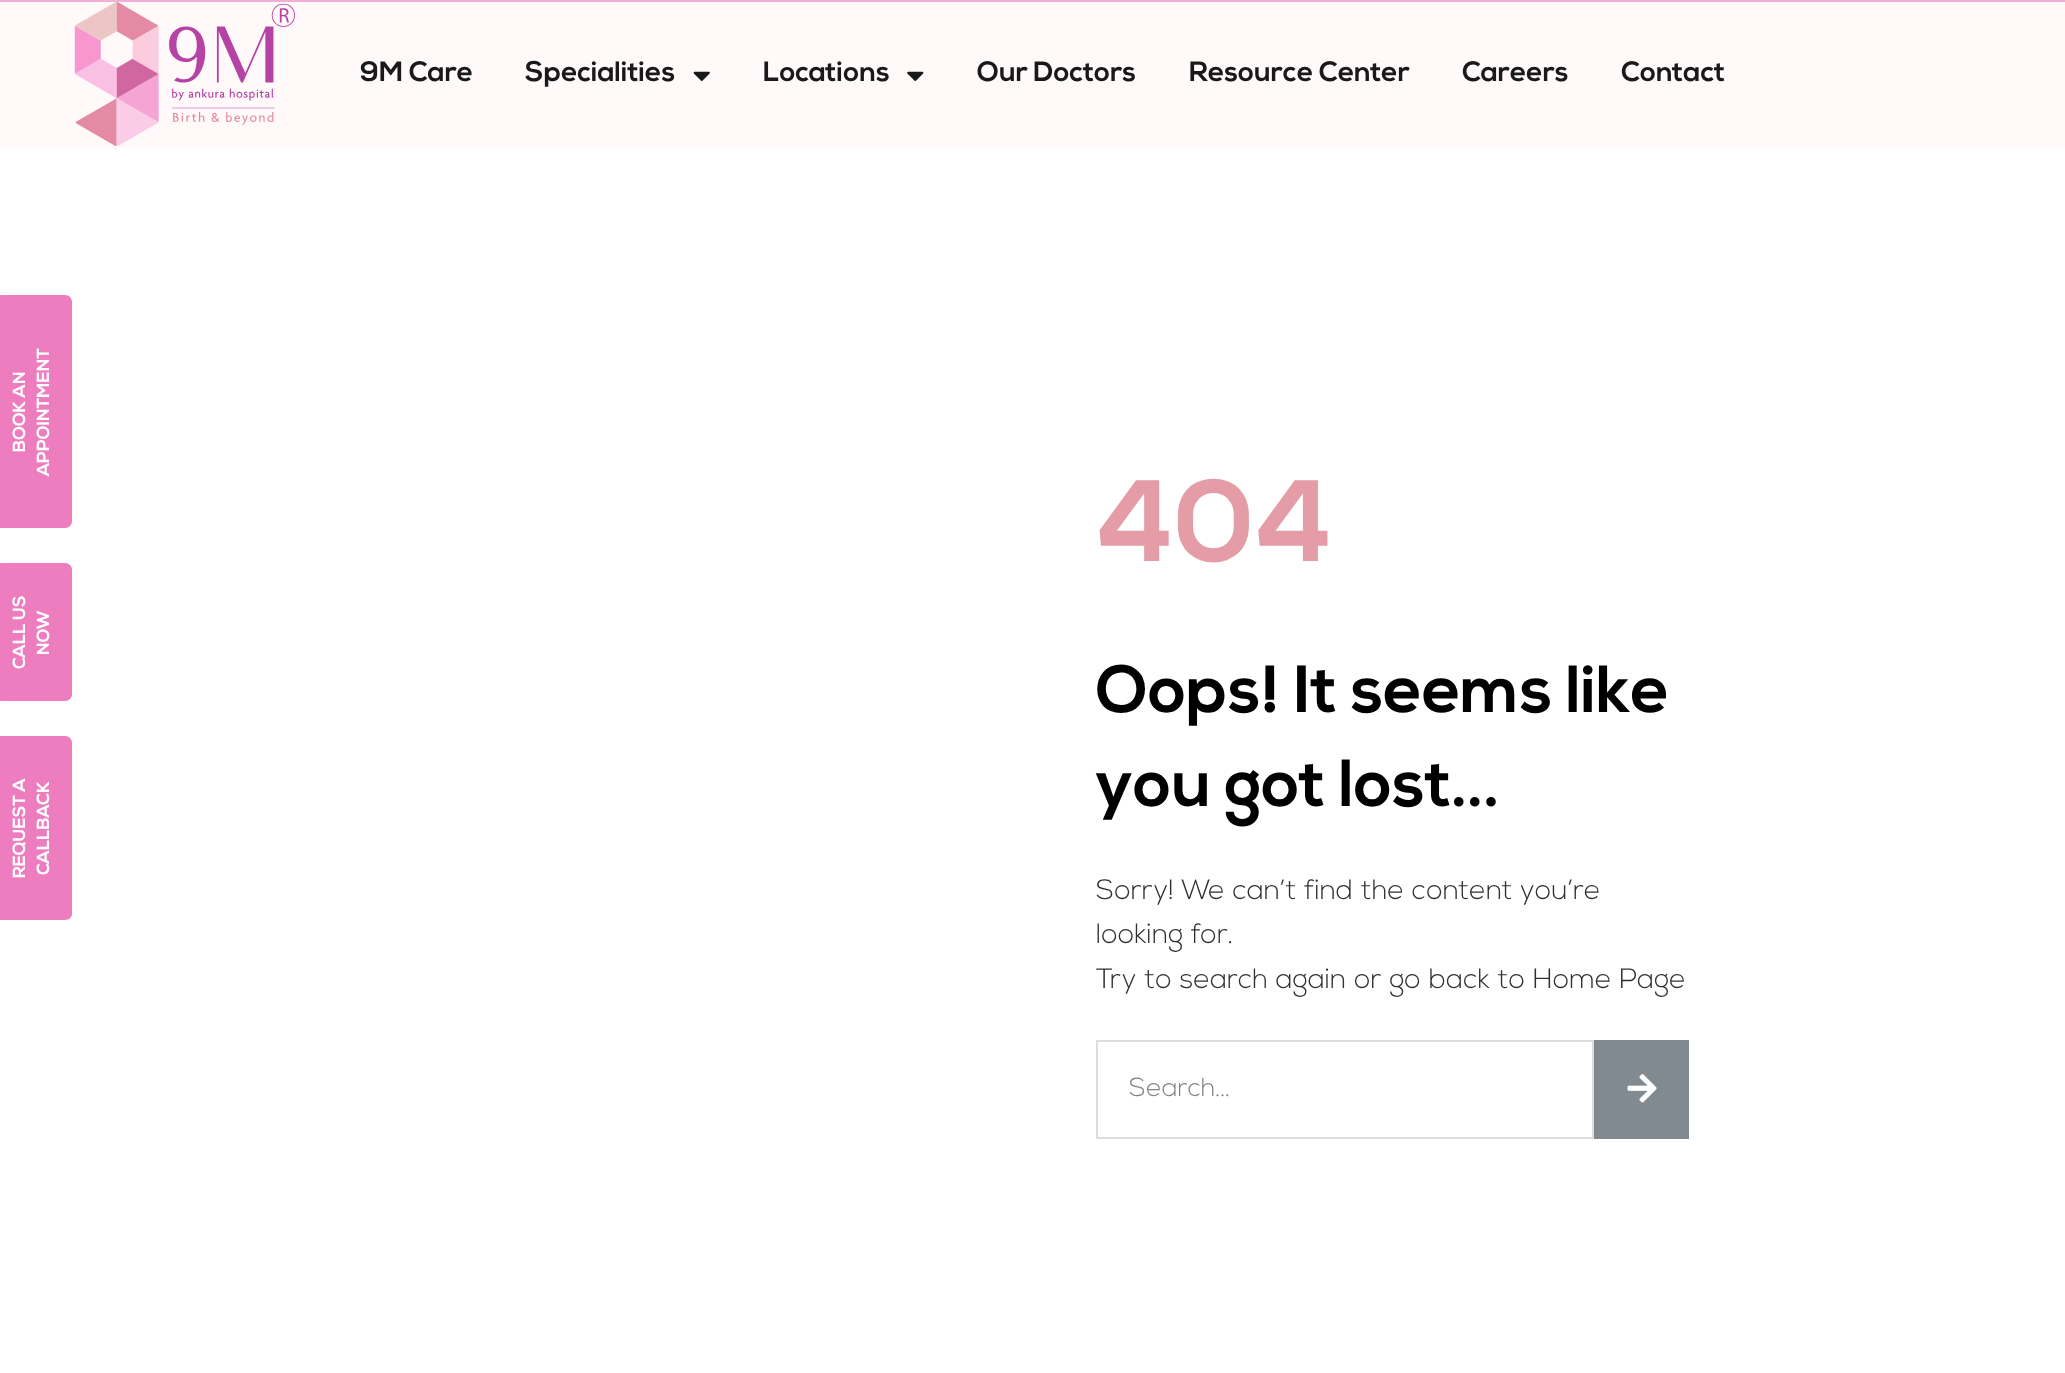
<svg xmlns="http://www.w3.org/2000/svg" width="2065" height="1373">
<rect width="100%" height="100%" fill="#fff"/>
<rect width="2065" height="2" fill="#eeb0d4"/>
<rect y="2" width="2065" height="147" fill="#fff9fa"/>
<image x="74" y="2" width="221" height="144" href="media/1.png"/>
<text x="360" y="81" style="font-family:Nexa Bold;font-size:28px;font-weight:bold;fill:#191919">9M Care</text>
<text x="525" y="81" style="font-family:Nexa Bold;font-size:28px;font-weight:bold;fill:#191919">Specialities</text>
<image x="693" y="71" width="17" height="10" href="media/2.png"/>
<text x="763" y="81" style="font-family:Nexa Bold;font-size:28px;font-weight:bold;fill:#191919">Locations</text>
<image x="907" y="71" width="17" height="10" href="media/3.png"/>
<text x="977" y="81" style="font-family:Nexa Bold;font-size:28px;font-weight:bold;fill:#191919">Our Doctors</text>
<text x="1189" y="81" style="font-family:Nexa Bold;font-size:28px;font-weight:bold;fill:#191919">Resource Center</text>
<text x="1462" y="81" style="font-family:Nexa Bold;font-size:28px;font-weight:bold;fill:#191919">Careers</text>
<text x="1621" y="81" style="font-family:Nexa Bold;font-size:28px;font-weight:bold;fill:#191919">Contact</text>
<path d="M-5 521v-219c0-4 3-7 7-7h63c4 0 7 3 7 7v219c0 4-3 7-7 7h-63c-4 0-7-3-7-7z" fill="#ed7dbf"/>
<text x="25" y="452" transform="rotate(-90 25 452)" style="font-family:Nexa Bold;font-size:17.5px;font-weight:bold;fill:#fff">BOOK AN</text>
<text x="49" y="476" transform="rotate(-90 49 476)" style="font-family:Nexa Bold;font-size:17.5px;font-weight:bold;fill:#fff">APPOINTMENT</text>
<path d="M-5 694v-124c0-4 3-7 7-7h63c4 0 7 3 7 7v124c0 4-3 7-7 7h-63c-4 0-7-3-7-7z" fill="#ed7dbf"/>
<text x="25" y="669" transform="rotate(-90 25 669)" style="font-family:Nexa Bold;font-size:17.5px;font-weight:bold;fill:#fff">CALL US</text>
<text x="49" y="655" transform="rotate(-90 49 655)" style="font-family:Nexa Bold;font-size:17.5px;font-weight:bold;fill:#fff">NOW</text>
<path d="M-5 914v-171c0-4 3-7 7-7h63c4 0 7 3 7 7v171c0 3-3 6-7 6h-63c-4 0-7-3-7-6z" fill="#ed7dbf"/>
<text x="25" y="878" transform="rotate(-90 25 878)" style="font-family:Nexa Bold;font-size:17.5px;font-weight:bold;fill:#fff">REQUEST A</text>
<text x="49" y="875" transform="rotate(-90 49 875)" style="font-family:Nexa Bold;font-size:17.5px;font-weight:bold;fill:#fff">CALLBACK</text>
<text x="1096" y="561" style="font-family:Nexa Bold;font-size:115.5px;font-weight:bold;fill:#e49ca7">404</text>
<text x="1096" y="712" style="font-family:Nexa Bold;font-size:66.5px;font-weight:bold;fill:#000">Oops! It seems like</text>
<text x="1096" y="806" style="font-family:Nexa Bold;font-size:66.5px;font-weight:bold;fill:#000">you got lost...</text>
<text x="1096" y="899" style="font-family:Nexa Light;font-size:28px;font-weight:300;fill:#2e3031">Sorry! We can’t find the content you’re</text>
<text x="1096" y="943" style="font-family:Nexa Light;font-size:28px;font-weight:300;fill:#2e3031">looking for.</text>
<text x="1096" y="988" style="font-family:Nexa Light;font-size:28px;font-weight:300;fill:#2e3031">Try to search again or go back to Home Page</text>
<rect x="1097" y="1041" width="496" height="97" fill="none" stroke="#ddd" stroke-width="2"/>
<text x="1129" y="1096" style="font-family:Nexa Light;font-size:26px;font-weight:300;fill:#828383">Search...</text>
<rect x="1594" y="1040" width="95" height="99" fill="#818a91"/>
<image x="1627" y="1074" width="30" height="29" href="media/4.png"/>
</svg>
